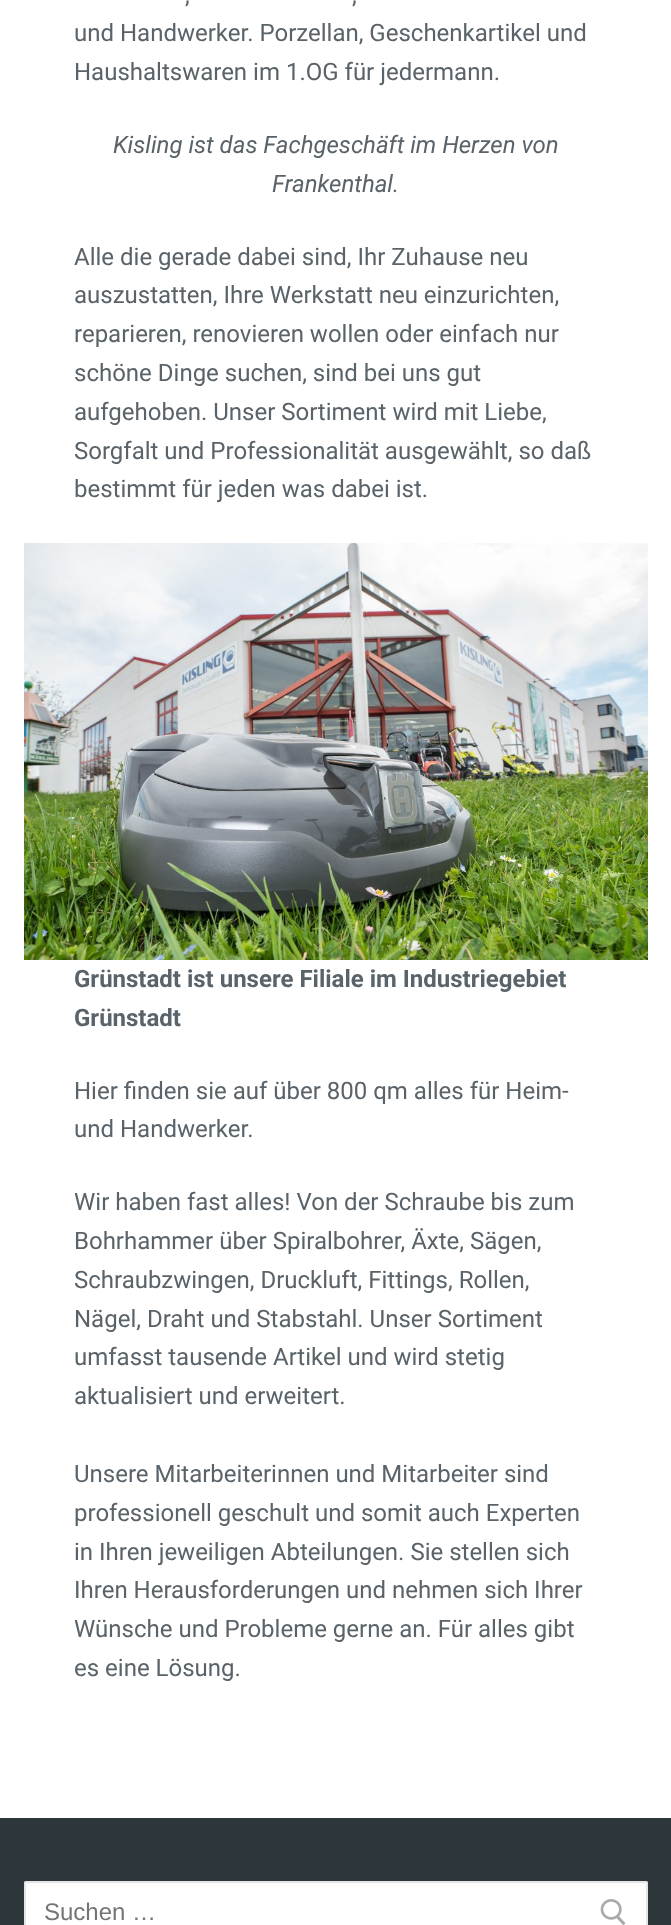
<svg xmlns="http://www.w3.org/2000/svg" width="671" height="1925">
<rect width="100%" height="100%" fill="#2d373b"/>
<rect width="671" height="1818" fill="#fff"/>
<text x="185" y="3" style="font-family:Roboto;font-size:24px;fill:#596369">,</text>
<text x="352" y="3" style="font-family:Roboto;font-size:24px;fill:#596369">,</text>
<text x="74" y="41" style="font-family:Roboto;font-size:24px;fill:#596369">und Handwerker. Porzellan, Geschenkartikel und</text>
<text x="74" y="80" style="font-family:Roboto;font-size:24px;fill:#596369">Haushaltswaren im 1.OG für jedermann.</text>
<text x="113" y="153" style="font-family:Roboto;font-size:24px;font-style:italic;fill:#596369">Kisling ist das Fachgeschäft im Herzen von</text>
<text x="272" y="192" style="font-family:Roboto;font-size:24px;font-style:italic;fill:#596369">Frankenthal.</text>
<text x="74" y="265" style="font-family:Roboto;font-size:24px;fill:#596369">Alle die gerade dabei sind, Ihr Zuhause neu</text>
<text x="74" y="303" style="font-family:Roboto;font-size:24px;fill:#596369">auszustatten, Ihre Werkstatt neu einzurichten,</text>
<text x="74" y="342" style="font-family:Roboto;font-size:24px;fill:#596369">reparieren, renovieren wollen oder einfach nur</text>
<text x="74" y="381" style="font-family:Roboto;font-size:24px;fill:#596369">schöne Dinge suchen, sind bei uns gut</text>
<text x="74" y="420" style="font-family:Roboto;font-size:24px;fill:#596369">aufgehoben. Unser Sortiment wird mit Liebe,</text>
<text x="74" y="459" style="font-family:Roboto;font-size:24px;fill:#596369">Sorgfalt und Professionalität ausgewählt, so daß</text>
<text x="74" y="497" style="font-family:Roboto;font-size:24px;fill:#596369">bestimmt für jeden was dabei ist.</text>
<image x="24" y="543" width="624" height="417" href="media/1.png"/>
<text x="74" y="987" style="font-family:Roboto;font-size:24px;font-weight:bold;fill:#596369">Grünstadt ist unsere Filiale im Industriegebiet</text>
<text x="74" y="1026" style="font-family:Roboto;font-size:24px;font-weight:bold;fill:#596369">Grünstadt</text>
<text x="74" y="1099" style="font-family:Roboto;font-size:24px;fill:#596369">Hier finden sie auf über 800 qm alles für Heim-</text>
<text x="74" y="1137" style="font-family:Roboto;font-size:24px;fill:#596369">und Handwerker.</text>
<text x="74" y="1210" style="font-family:Roboto;font-size:24px;fill:#596369">Wir haben fast alles! Von der Schraube bis zum</text>
<text x="74" y="1249" style="font-family:Roboto;font-size:24px;fill:#596369">Bohrhammer über Spiralbohrer, Äxte, Sägen,</text>
<text x="74" y="1288" style="font-family:Roboto;font-size:24px;fill:#596369">Schraubzwingen, Druckluft, Fittings, Rollen,</text>
<text x="74" y="1327" style="font-family:Roboto;font-size:24px;fill:#596369">Nägel, Draht und Stabstahl. Unser Sortiment</text>
<text x="74" y="1365" style="font-family:Roboto;font-size:24px;fill:#596369">umfasst tausende Artikel und wird stetig</text>
<text x="74" y="1404" style="font-family:Roboto;font-size:24px;fill:#596369">aktualisiert und erweitert.</text>
<text x="74" y="1482" style="font-family:Roboto;font-size:24px;fill:#596369">Unsere Mitarbeiterinnen und Mitarbeiter sind</text>
<text x="74" y="1521" style="font-family:Roboto;font-size:24px;fill:#596369">professionell geschult und somit auch Experten</text>
<text x="74" y="1560" style="font-family:Roboto;font-size:24px;fill:#596369">in Ihren jeweiligen Abteilungen. Sie stellen sich</text>
<text x="74" y="1598" style="font-family:Roboto;font-size:24px;fill:#596369">Ihren Herausforderungen und nehmen sich Ihrer</text>
<text x="74" y="1637" style="font-family:Roboto;font-size:24px;fill:#596369">Wünsche und Probleme gerne an. Für alles gibt</text>
<text x="74" y="1676" style="font-family:Roboto;font-size:24px;fill:#596369">es eine Lösung.</text>
<rect x="25" y="1882" width="622" height="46" rx="0.5" fill="#fff" stroke="#e5e5e5" stroke-width="2"/>
<text x="44" y="1920" style="font-family:Liberation Sans;font-size:24px;fill:#757575">Suchen …</text>
<image x="600" y="1899" width="26" height="26" href="media/2.png"/>
</svg>
